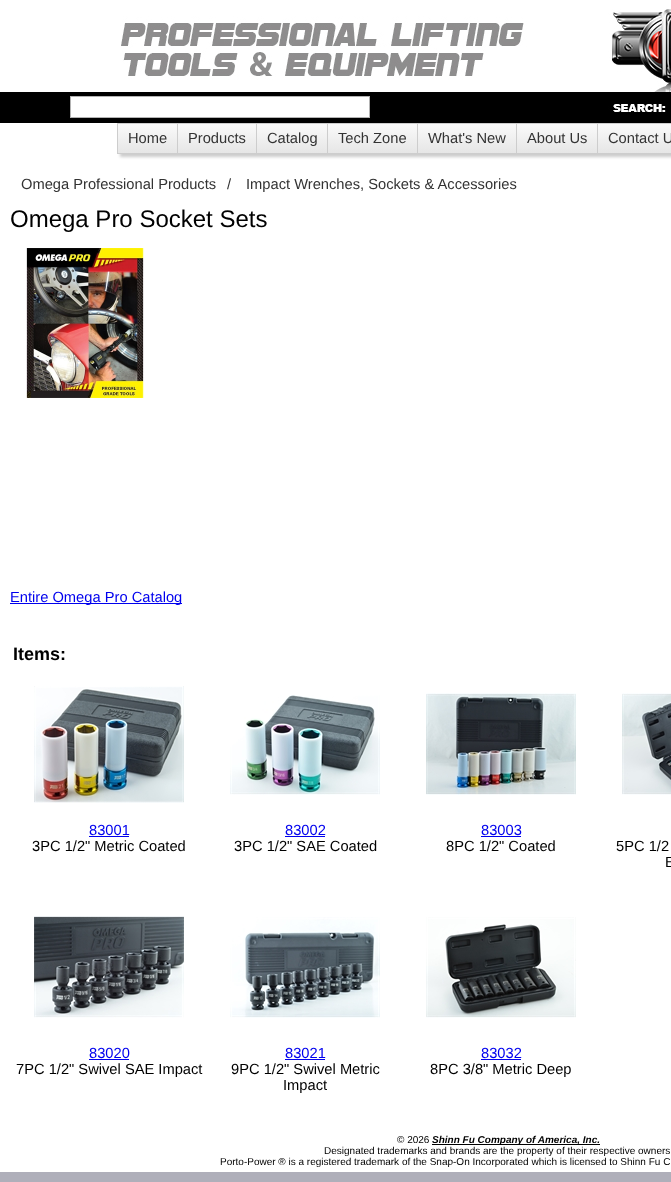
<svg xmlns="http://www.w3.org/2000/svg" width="671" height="1182">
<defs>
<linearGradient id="g1" gradientUnits="userSpaceOnUse" x1="501" y1="124" x2="501" y2="153"><stop offset="0" stop-color="#fafafa"/><stop offset="1" stop-color="#e6e6e6"/></linearGradient>
</defs>
<rect width="100%" height="100%" fill="#afafba"/>
<rect width="671" height="1172" fill="#fff"/>
<image x="0" y="9" width="671" height="114" href="media/1.png"/>
<rect x="70.5" y="96.5" width="299" height="21" fill="#fff" stroke="#b3b3b3"/>
<rect x="120" y="126" width="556" height="31" fill="#00000033" filter="blur(1.5px)"/>
<rect x="118" y="124" width="553" height="29" fill="url(#g1)"/>
<rect x="117.5" y="123.5" width="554" height="30" fill="none" stroke="#cdcdcd"/>
<rect x="177" y="124" width="1" height="29" fill="#cdcdcd"/>
<text x="128" y="143" style="font-family:Liberation Sans;font-size:14.7px;fill:#333">Home</text>
<rect x="256" y="124" width="1" height="29" fill="#cdcdcd"/>
<text x="188" y="143" style="font-family:Liberation Sans;font-size:14.7px;fill:#333">Products</text>
<rect x="327" y="124" width="1" height="29" fill="#cdcdcd"/>
<text x="267" y="143" style="font-family:Liberation Sans;font-size:14.7px;fill:#333">Catalog</text>
<rect x="417" y="124" width="1" height="29" fill="#cdcdcd"/>
<text x="338" y="143" style="font-family:Liberation Sans;font-size:14.7px;fill:#333">Tech Zone</text>
<rect x="516" y="124" width="1" height="29" fill="#cdcdcd"/>
<text x="428" y="143" style="font-family:Liberation Sans;font-size:14.7px;fill:#333">What's New</text>
<rect x="597" y="124" width="1" height="29" fill="#cdcdcd"/>
<text x="527" y="143" style="font-family:Liberation Sans;font-size:14.7px;fill:#333">About Us</text>
<text x="608" y="143" style="font-family:Liberation Sans;font-size:14.7px;fill:#333">Contact U</text>
<text x="21" y="189" style="font-family:Liberation Sans;font-size:14.7px;fill:#333">Omega Professional Products</text>
<text x="227" y="189" style="font-family:Liberation Sans;font-size:14.7px;fill:#333">/</text>
<text x="246" y="189" style="font-family:Liberation Sans;font-size:14.7px;fill:#333">Impact Wrenches, Sockets &amp; Accessories</text>
<text x="10" y="227" style="font-family:Liberation Sans;font-size:24px;fill:#000">Omega Pro Socket Sets</text>
<image x="26" y="248" width="119" height="150" href="media/2.png"/>
<rect x="10" y="603" width="172" height="1" fill="#00e"/>
<text x="10" y="602" style="font-family:Liberation Sans;font-size:14.7px;fill:#00e">Entire Omega Pro Catalog</text>
<text x="13" y="660" style="font-family:Liberation Sans;font-size:18px;font-weight:bold;fill:#000">Items:</text>
<image x="34" y="686" width="150" height="117" href="media/3.png"/>
<text x="89" y="835" style="font-family:Liberation Sans;font-size:14.7px;fill:#00e">83001</text>
<rect x="89" y="836" width="40" height="1" fill="#00e"/>
<text x="32" y="851" style="font-family:Liberation Sans;font-size:14.7px;fill:#000">3PC 1/2" Metric Coated</text>
<image x="230" y="695" width="150" height="100" href="media/4.png"/>
<text x="285" y="835" style="font-family:Liberation Sans;font-size:14.7px;fill:#00e">83002</text>
<rect x="285" y="836" width="40" height="1" fill="#00e"/>
<text x="234" y="851" style="font-family:Liberation Sans;font-size:14.7px;fill:#000">3PC 1/2" SAE Coated</text>
<image x="426" y="693" width="150" height="102" href="media/5.png"/>
<text x="481" y="835" style="font-family:Liberation Sans;font-size:14.7px;fill:#00e">83003</text>
<rect x="481" y="836" width="40" height="1" fill="#00e"/>
<text x="446" y="851" style="font-family:Liberation Sans;font-size:14.7px;fill:#000">8PC 1/2" Coated</text>
<image x="622" y="693" width="49" height="102" href="media/6.png"/>
<text x="616" y="851" style="font-family:Liberation Sans;font-size:14.7px;fill:#000">5PC 1/2</text>
<text x="665" y="867" style="font-family:Liberation Sans;font-size:14.7px;fill:#000">E</text>
<image x="34" y="916" width="150" height="102" href="media/7.png"/>
<text x="89" y="1058" style="font-family:Liberation Sans;font-size:14.7px;fill:#00e">83020</text>
<rect x="89" y="1059" width="40" height="1" fill="#00e"/>
<text x="16" y="1074" style="font-family:Liberation Sans;font-size:14.7px;fill:#000">7PC 1/2" Swivel SAE Impact</text>
<image x="230" y="917" width="150" height="101" href="media/8.png"/>
<text x="285" y="1058" style="font-family:Liberation Sans;font-size:14.7px;fill:#00e">83021</text>
<rect x="285" y="1059" width="40" height="1" fill="#00e"/>
<text x="231" y="1074" style="font-family:Liberation Sans;font-size:14.7px;fill:#000">9PC 1/2" Swivel Metric</text>
<text x="283" y="1090" style="font-family:Liberation Sans;font-size:14.7px;fill:#000">Impact</text>
<image x="426" y="917" width="150" height="101" href="media/9.png"/>
<text x="481" y="1058" style="font-family:Liberation Sans;font-size:14.7px;fill:#00e">83032</text>
<rect x="481" y="1059" width="40" height="1" fill="#00e"/>
<text x="430" y="1074" style="font-family:Liberation Sans;font-size:14.7px;fill:#000">8PC 3/8" Metric Deep</text>
<text x="397" y="1143" style="font-family:Liberation Sans;font-size:10px;fill:#000">© 2026</text>
<rect x="432" y="1144" width="168" height="1" fill="#000"/>
<text x="432" y="1143" style="font-family:Liberation Sans;font-size:10px;font-weight:bold;font-style:italic;fill:#000">Shinn Fu Company of America, Inc.</text>
<text x="324" y="1154" style="font-family:Liberation Sans;font-size:10px;fill:#000">Designated trademarks and brands are the property of their respective owners</text>
<text x="220" y="1165" style="font-family:Liberation Sans;font-size:10px;fill:#000">Porto-Power ® is a registered trademark of the Snap-On Incorporated which is licensed to Shinn Fu C</text>
</svg>
